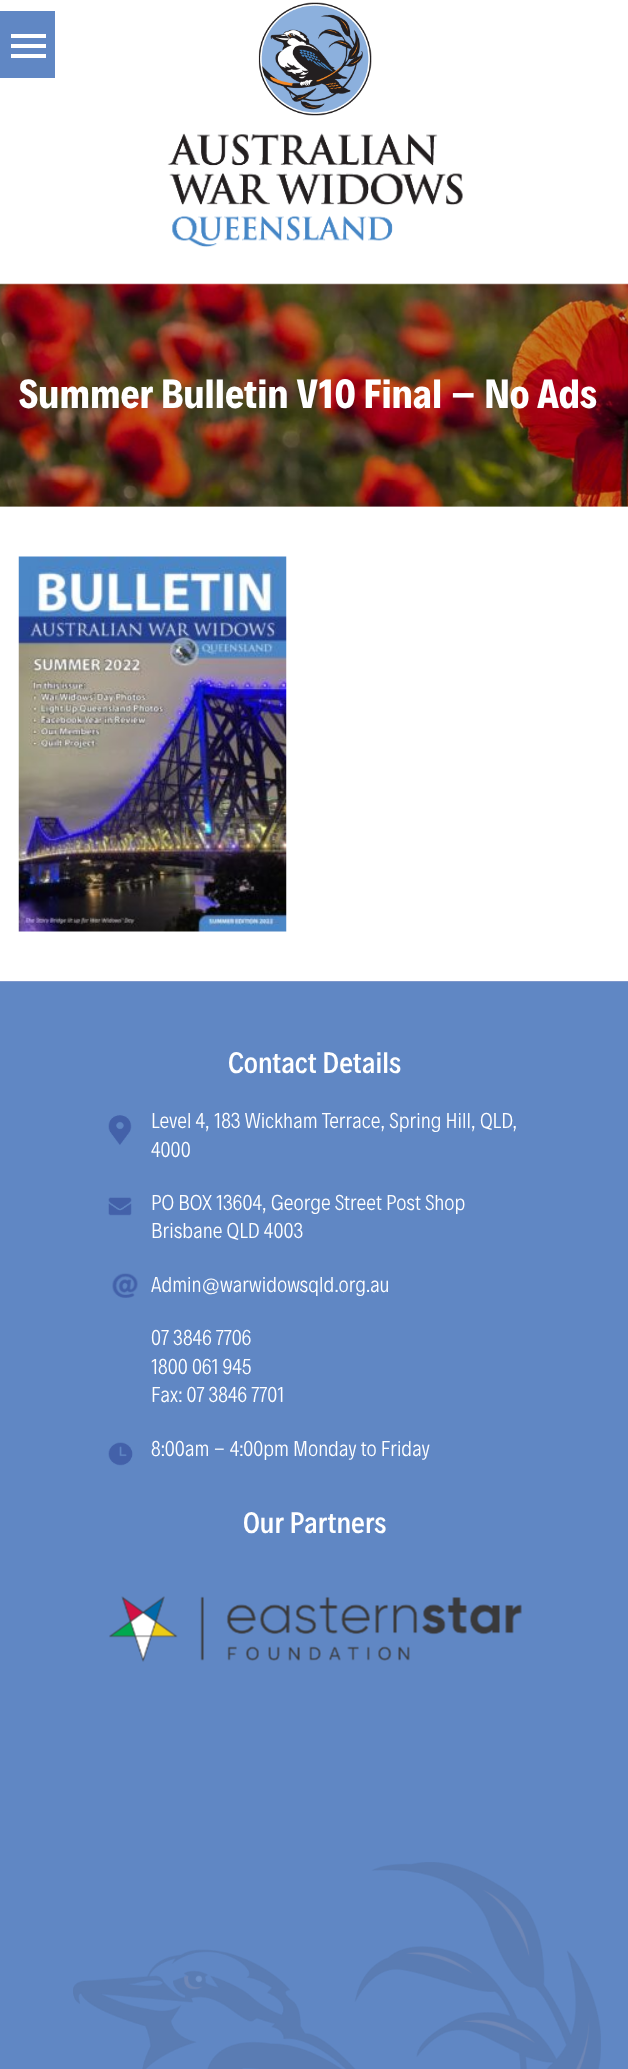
<svg xmlns="http://www.w3.org/2000/svg" width="628" height="2069">
<rect width="100%" height="100%" fill="#fff"/>
<rect y="11" width="55" height="67" fill="#6087c4"/>
<rect x="11" y="44" width="35" height="4" fill="#fff"/>
<rect x="11" y="34" width="35" height="4" fill="#fff"/>
<rect x="11" y="54" width="35" height="4" fill="#fff"/>
<image x="258" y="2" width="114" height="114" href="media/1.png"/>
<image x="167" y="133" width="296" height="114" href="media/2.png"/>
<image x="0" y="283" width="628" height="224" href="media/3.png"/>
<text x="19" y="408" style="font-family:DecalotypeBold;font-size:41.25px;font-weight:bold;fill:#fff">Summer Bulletin V10 Final – No Ads</text>
<image x="18" y="556" width="269" height="376" href="media/4.png"/>
<rect y="982" width="628" height="1087" fill="#6087c4"/>
<image x="73" y="1862" width="528" height="207" href="media/5.png"/>
<rect y="981" width="628" height="1" fill="#7f98cc"/>
<text x="228" y="1073" style="font-family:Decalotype;font-size:30px;font-weight:500;fill:#fff">Contact Details</text>
<image x="108" y="1115" width="24" height="30" href="media/6.png"/>
<text x="151" y="1128" style="font-family:Decalotype;font-size:21.9px;font-weight:300;fill:#fff">Level 4, 183 Wickham Terrace, Spring Hill, QLD,</text>
<text x="151" y="1157" style="font-family:Decalotype;font-size:21.9px;font-weight:300;fill:#fff">4000</text>
<image x="108" y="1197" width="24" height="19" href="media/7.png"/>
<text x="151" y="1210" style="font-family:Decalotype;font-size:21.9px;font-weight:300;fill:#fff">PO BOX 13604, George Street Post Shop</text>
<text x="151" y="1238" style="font-family:Decalotype;font-size:21.9px;font-weight:300;fill:#fff">Brisbane QLD 4003</text>
<image x="112" y="1273" width="26" height="25" href="media/8.png"/>
<text x="151" y="1292" style="font-family:Decalotype;font-size:21.9px;font-weight:300;fill:#fff">Admin@warwidowsqld.org.au</text>
<text x="151" y="1345" style="font-family:Decalotype;font-size:21.9px;font-weight:300;fill:#fff">07 3846 7706</text>
<text x="151" y="1374" style="font-family:Decalotype;font-size:21.9px;font-weight:300;fill:#fff">1800 061 945</text>
<text x="151" y="1402" style="font-family:Decalotype;font-size:21.9px;font-weight:300;fill:#fff">Fax: 07 3846 7701</text>
<image x="108" y="1442" width="25" height="24" href="media/9.png"/>
<text x="151" y="1456" style="font-family:Decalotype;font-size:21.9px;font-weight:300;fill:#fff">8:00am - 4:00pm Monday to Friday</text>
<text x="243" y="1533" style="font-family:Decalotype;font-size:30px;font-weight:500;fill:#fff">Our Partners</text>
<image x="109" y="1596" width="413" height="66" href="media/10.png"/>
</svg>
